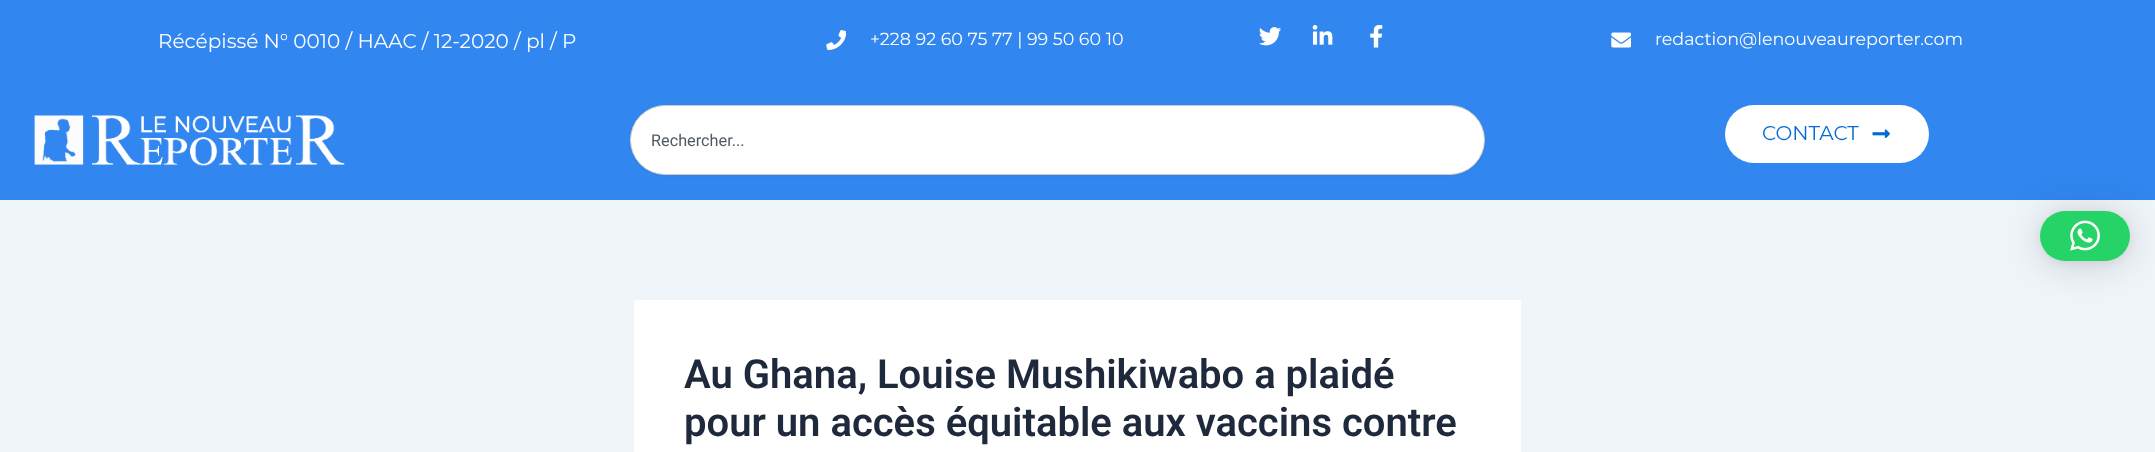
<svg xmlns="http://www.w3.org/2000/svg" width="2155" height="452">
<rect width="100%" height="100%" fill="#f0f5fa"/>
<rect width="2155" height="200" fill="#3187ef"/>
<text x="158" y="48" style="font-family:Montserrat;font-size:20px;fill:#fff">Récépissé N° 0010 / HAAC / 12-2020 / pl / P</text>
<image x="826" y="30" width="20" height="20" href="media/1.png"/>
<text x="870" y="45" style="font-family:Montserrat;font-size:17.5px;fill:#fff">+228 92 60 75 77 | 99 50 60 10</text>
<image x="1259" y="27" width="22" height="19" href="media/2.png"/>
<image x="1312" y="25" width="21" height="20" href="media/3.png"/>
<image x="1370" y="25" width="13" height="23" href="media/4.png"/>
<image x="1611" y="32" width="20" height="16" href="media/5.png"/>
<text x="1655" y="45" style="font-family:Montserrat;font-size:17.5px;fill:#fff">redaction@lenouveaureporter.com</text>
<image x="34" y="115" width="311" height="51" href="media/6.png"/>
<rect x="630" y="106" width="855" height="70" rx="35" fill="#0000000d" filter="blur(1px)"/>
<rect x="630.5" y="105.5" width="854" height="69" rx="34.5" fill="#fff" stroke="#cdcdcd"/>
<text x="651" y="146" style="font-family:Roboto;font-size:16.25px;fill:#515962">Rechercher...</text>
<rect x="1725" y="105" width="204" height="58" rx="29" fill="#fff"/>
<text x="1762" y="140" style="font-family:Montserrat;font-size:20px;fill:#046bd2">CONTACT</text>
<image x="1872" y="129" width="18" height="9" href="media/7.png"/>
<rect x="634" y="300" width="887" height="152" fill="#fff"/>
<text x="684" y="388" style="font-family:Roboto;font-size:40px;font-weight:600;fill:#1e293b">Au Ghana, Louise Mushikiwabo a plaidé</text>
<text x="684" y="436" style="font-family:Roboto;font-size:40px;font-weight:600;fill:#1e293b">pour un accès équitable aux vaccins contre</text>
<rect x="2040" y="214" width="90" height="50" rx="25" fill="#00000029" filter="blur(20px)"/>
<rect x="2040" y="213" width="90" height="50" rx="25" fill="#0000000f" filter="blur(4px)"/>
<rect x="2040" y="211" width="90" height="50" rx="25" fill="#25d366"/>
<image x="2070" y="220" width="30" height="31" href="media/8.png"/>
</svg>
